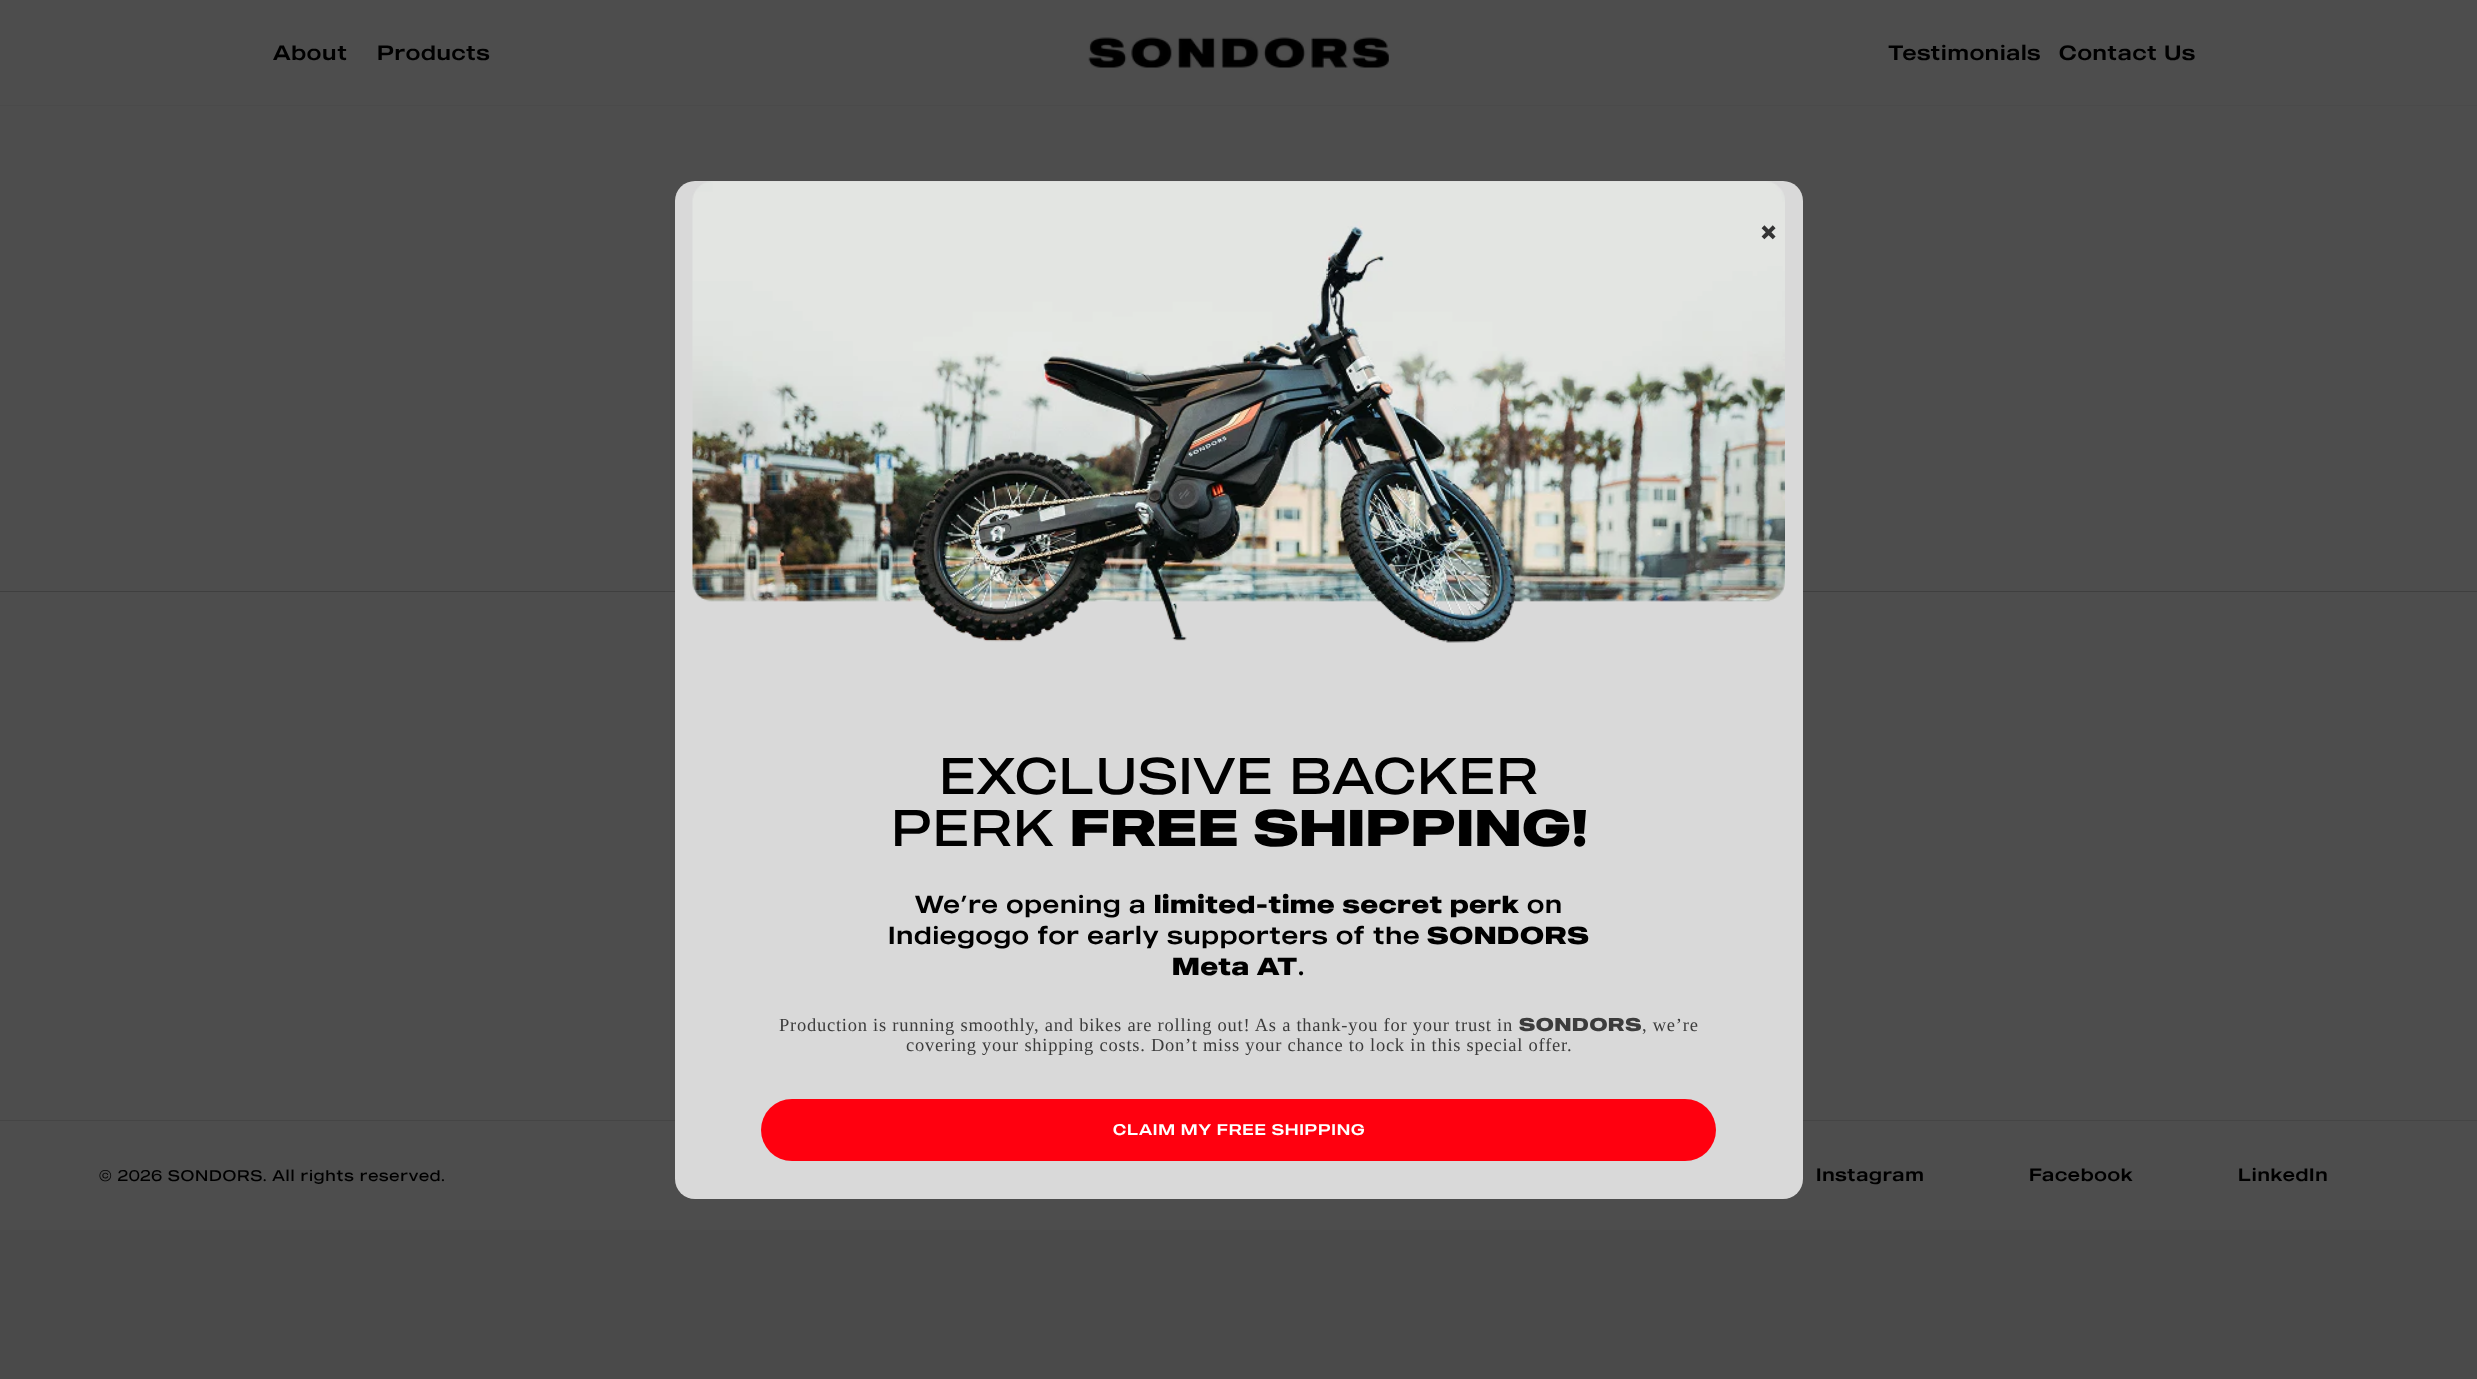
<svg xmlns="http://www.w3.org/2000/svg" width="2477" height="1379">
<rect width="100%" height="100%" fill="#4a4a4a"/>
<rect width="2477" height="1230" fill="#4d4d4d"/>
<rect y="105" width="2477" height="1" fill="#4a4a4a"/>
<text x="273" y="60" style="font-family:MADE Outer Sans;font-size:20.75px;letter-spacing:0.75px;fill:#000">About</text>
<text x="377" y="60" style="font-family:MADE Outer Sans;font-size:20.75px;letter-spacing:0.75px;fill:#000">Products</text>
<image x="1088" y="37" width="301" height="31" href="media/1.png"/>
<text x="1888" y="60" style="font-family:MADE Outer Sans;font-size:20.75px;letter-spacing:0.75px;fill:#000">Testimonials</text>
<text x="2059" y="60" style="font-family:MADE Outer Sans;font-size:20.75px;letter-spacing:0.75px;fill:#000">Contact Us</text>
<rect y="591" width="2477" height="1" fill="#3f3f3f"/>
<rect y="1120" width="2477" height="1" fill="#454545"/>
<rect x="675" y="181" width="1128" height="1018" rx="20" fill="#d9d9d9"/>
<image x="692" y="181" width="1093" height="462" href="media/2.png"/>
<text x="1759" y="244" style="font-family:'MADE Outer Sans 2';font-size:35px;font-weight:bold;letter-spacing:0.75px;fill:#333">×</text>
<text x="939" y="794" style="font-family:MADE Outer Sans;font-size:51.5px;font-weight:300;letter-spacing:0.75px;fill:#000">EXCLUSIVE BACKER</text>
<text x="891" y="846" style="font-family:MADE Outer Sans;font-size:51.5px;font-weight:300;letter-spacing:0.75px;fill:#000">PERK</text>
<text x="1070" y="846" style="font-family:MADE Outer Sans;font-size:51.5px;font-weight:bold;letter-spacing:0.75px;fill:#000">FREE SHIPPING!</text>
<text x="915" y="913" style="font-family:MADE Outer Sans;font-size:24.7px;letter-spacing:0.75px;fill:#000">We’re opening a</text>
<text x="1154" y="913" style="font-family:MADE Outer Sans;font-size:24.7px;font-weight:bold;letter-spacing:0.75px;fill:#000">limited-time secret perk</text>
<text x="1527" y="913" style="font-family:MADE Outer Sans;font-size:24.7px;letter-spacing:0.75px;fill:#000">on</text>
<text x="888" y="944" style="font-family:MADE Outer Sans;font-size:24.7px;letter-spacing:0.75px;fill:#000">Indiegogo for early supporters of the</text>
<text x="1427" y="944" style="font-family:MADE Outer Sans;font-size:24.7px;font-weight:bold;letter-spacing:0.75px;fill:#000">SONDORS</text>
<text x="1172" y="975" style="font-family:MADE Outer Sans;font-size:24.7px;font-weight:bold;letter-spacing:0.75px;fill:#000">Meta AT</text>
<text x="1298" y="975" style="font-family:MADE Outer Sans;font-size:24.7px;letter-spacing:0.75px;fill:#000">.</text>
<text x="779" y="1031" style="font-family:Liberation Serif;font-size:18.5px;letter-spacing:0.75px;fill:#3c3c3c">Production is running smoothly, and bikes are rolling out! As a thank-you for your trust in</text>
<text x="1519" y="1031" style="font-family:MADE Outer Sans;font-size:18.5px;font-weight:bold;letter-spacing:0.75px;fill:#3c3c3c">SONDORS</text>
<text x="1642" y="1031" style="font-family:Liberation Serif;font-size:18.5px;letter-spacing:0.75px;fill:#3c3c3c">, we’re</text>
<text x="906" y="1051" style="font-family:Liberation Serif;font-size:18.5px;letter-spacing:0.75px;fill:#3c3c3c">covering your shipping costs. Don’t miss your chance to lock in this special offer.</text>
<rect x="761" y="1099" width="955" height="62" rx="31" fill="#ff000f"/>
<text x="1113" y="1135" style="font-family:MADE Outer Sans;font-size:15.5px;letter-spacing:0.75px;fill:#fff">CLAIM MY FREE SHIPPING</text>
<text x="99" y="1181" style="font-family:MADE Outer Sans;font-size:15.5px;font-weight:300;letter-spacing:0.75px;fill:#000">© 2026 SONDORS. All rights reserved.</text>
<text x="1816" y="1181" style="font-family:MADE Outer Sans;font-size:18px;letter-spacing:0.75px;fill:#000">Instagram</text>
<text x="2029" y="1181" style="font-family:MADE Outer Sans;font-size:18px;letter-spacing:0.75px;fill:#000">Facebook</text>
<text x="2238" y="1181" style="font-family:MADE Outer Sans;font-size:18px;letter-spacing:0.75px;fill:#000">LinkedIn</text>
</svg>
